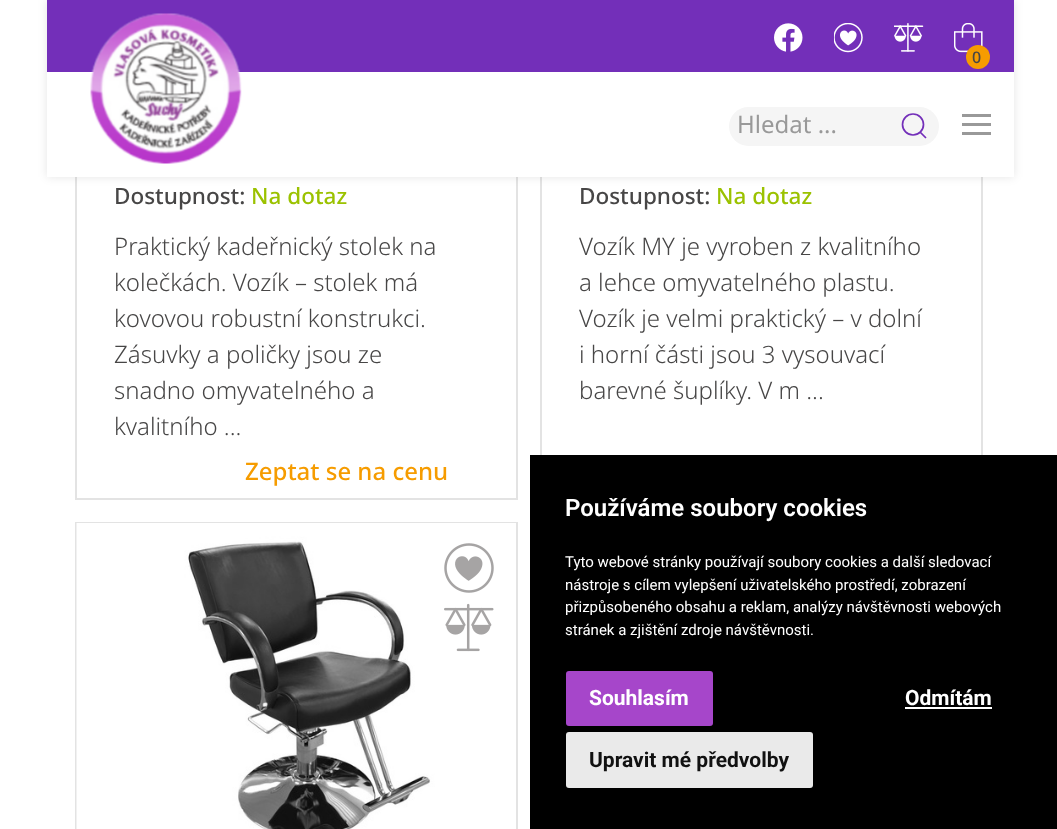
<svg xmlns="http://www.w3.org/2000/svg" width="1057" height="829">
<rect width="100%" height="100%" fill="#fff"/>
<rect x="76" y="-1" width="441" height="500" fill="none" stroke="#e3e3e3" stroke-width="2"/>
<rect x="541" y="-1" width="441" height="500" fill="none" stroke="#e3e3e3" stroke-width="2"/>
<rect x="47" width="967" height="177" fill="#0000001a" filter="blur(5px)"/>
<rect x="47" y="72" width="967" height="105" fill="#fff"/>
<rect x="47" width="967" height="72" fill="#732fb9"/>
<image x="90" y="13" width="152" height="151" href="media/1.png"/>
<image x="774" y="23" width="29" height="29" href="media/2.png"/>
<image x="834" y="23" width="29" height="30" href="media/3.png"/>
<image x="894" y="23" width="30" height="29" href="media/4.png"/>
<image x="954" y="23" width="29" height="30" href="media/5.png"/>
<circle cx="978" cy="57" r="12" fill="#f69c00"/>
<text x="972" y="63" style="font-family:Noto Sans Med;font-size:16px;font-weight:500;fill:#474646">0</text>
<rect x="729" y="107" width="210" height="39" rx="19.5" fill="#f5f5f5"/>
<text x="737" y="133" style="font-family:Noto Sans;font-size:24px;fill:#999">Hledat ...</text>
<circle cx="913" cy="124.5" r="10.5" fill="none" stroke="#732fb9" stroke-width="1.7"/>
<path d="M920 132l6 6z" fill="none" stroke="#732fb9" stroke-width="1.7"/>
<rect x="962" y="114" width="29" height="3" fill="#999"/>
<rect x="962" y="123" width="29" height="3" fill="#999"/>
<rect x="962" y="132" width="29" height="3" fill="#999"/>
<text x="114" y="204" style="font-family:Noto Sans Med;font-size:22.5px;font-weight:500;fill:#474646">Dostupnost:</text>
<text x="251" y="204" style="font-family:Noto Sans Med;font-size:22.5px;font-weight:500;fill:#9bc200">Na dotaz</text>
<text x="114" y="255" style="font-family:Noto Sans;font-size:24px;font-weight:300;fill:#474646">Praktický kadeřnický stolek na</text>
<text x="114" y="291" style="font-family:Noto Sans;font-size:24px;font-weight:300;fill:#474646">kolečkách. Vozík – stolek má</text>
<text x="114" y="327" style="font-family:Noto Sans;font-size:24px;font-weight:300;fill:#474646">kovovou robustní konstrukci.</text>
<text x="114" y="363" style="font-family:Noto Sans;font-size:24px;font-weight:300;fill:#474646">Zásuvky a poličky jsou ze</text>
<text x="114" y="399" style="font-family:Noto Sans;font-size:24px;font-weight:300;fill:#474646">snadno omyvatelného a</text>
<text x="114" y="435" style="font-family:Noto Sans;font-size:24px;font-weight:300;fill:#474646">kvalitního ...</text>
<text x="245" y="480" style="font-family:Noto Sans Med;font-size:24px;font-weight:500;fill:#f69c00">Zeptat se na cenu</text>
<text x="579" y="204" style="font-family:Noto Sans Med;font-size:22.5px;font-weight:500;fill:#474646">Dostupnost:</text>
<text x="716" y="204" style="font-family:Noto Sans Med;font-size:22.5px;font-weight:500;fill:#9bc200">Na dotaz</text>
<text x="579" y="255" style="font-family:Noto Sans;font-size:24px;font-weight:300;fill:#474646">Vozík MY je vyroben z kvalitního</text>
<text x="579" y="291" style="font-family:Noto Sans;font-size:24px;font-weight:300;fill:#474646">a lehce omyvatelného plastu.</text>
<text x="579" y="327" style="font-family:Noto Sans;font-size:24px;font-weight:300;fill:#474646">Vozík je velmi praktický – v dolní</text>
<text x="579" y="363" style="font-family:Noto Sans;font-size:24px;font-weight:300;fill:#474646">i horní části jsou 3 vysouvací</text>
<text x="579" y="399" style="font-family:Noto Sans;font-size:24px;font-weight:300;fill:#474646">barevné šuplíky. V m ...</text>
<rect x="76" y="523" width="441" height="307" fill="none" stroke="#e3e3e3" stroke-width="2"/>
<image x="76" y="523" width="440" height="306" href="media/6.png"/>
<image x="444" y="543" width="50" height="50" href="media/7.png"/>
<image x="444" y="603" width="50" height="49" href="media/8.png"/>
<rect x="530" y="455" width="527" height="374" fill="#000"/>
<text x="565" y="516" style="font-family:Roboto;font-size:24px;font-weight:600;fill:#fff">Používáme soubory cookies</text>
<text x="565" y="567" style="font-family:Roboto;font-size:15px;fill:#fff">Tyto webové stránky používají soubory cookies a další sledovací</text>
<text x="565" y="590" style="font-family:Roboto;font-size:15px;fill:#fff">nástroje s cílem vylepšení uživatelského prostředí, zobrazení</text>
<text x="565" y="612" style="font-family:Roboto;font-size:15px;fill:#fff">přizpůsobeného obsahu a reklam, analýzy návštěvnosti webových</text>
<text x="565" y="635" style="font-family:Roboto;font-size:15px;fill:#fff">stránek a zjištění zdroje návštěvnosti.</text>
<rect x="566" y="671" width="147" height="55" rx="3" fill="#a646ca"/>
<text x="589" y="705" style="font-family:Roboto;font-size:21px;font-weight:bold;fill:#fff">Souhlasím</text>
<text x="905" y="705" style="font-family:Roboto;font-size:21px;font-weight:bold;fill:#fff">Odmítám</text>
<rect x="905" y="707" width="87" height="2" fill="#fff"/>
<rect x="566" y="732" width="247" height="56" rx="3" fill="#eaeaea"/>
<text x="589" y="767" style="font-family:Roboto;font-size:21px;font-weight:bold;fill:#111">Upravit mé předvolby</text>
</svg>
